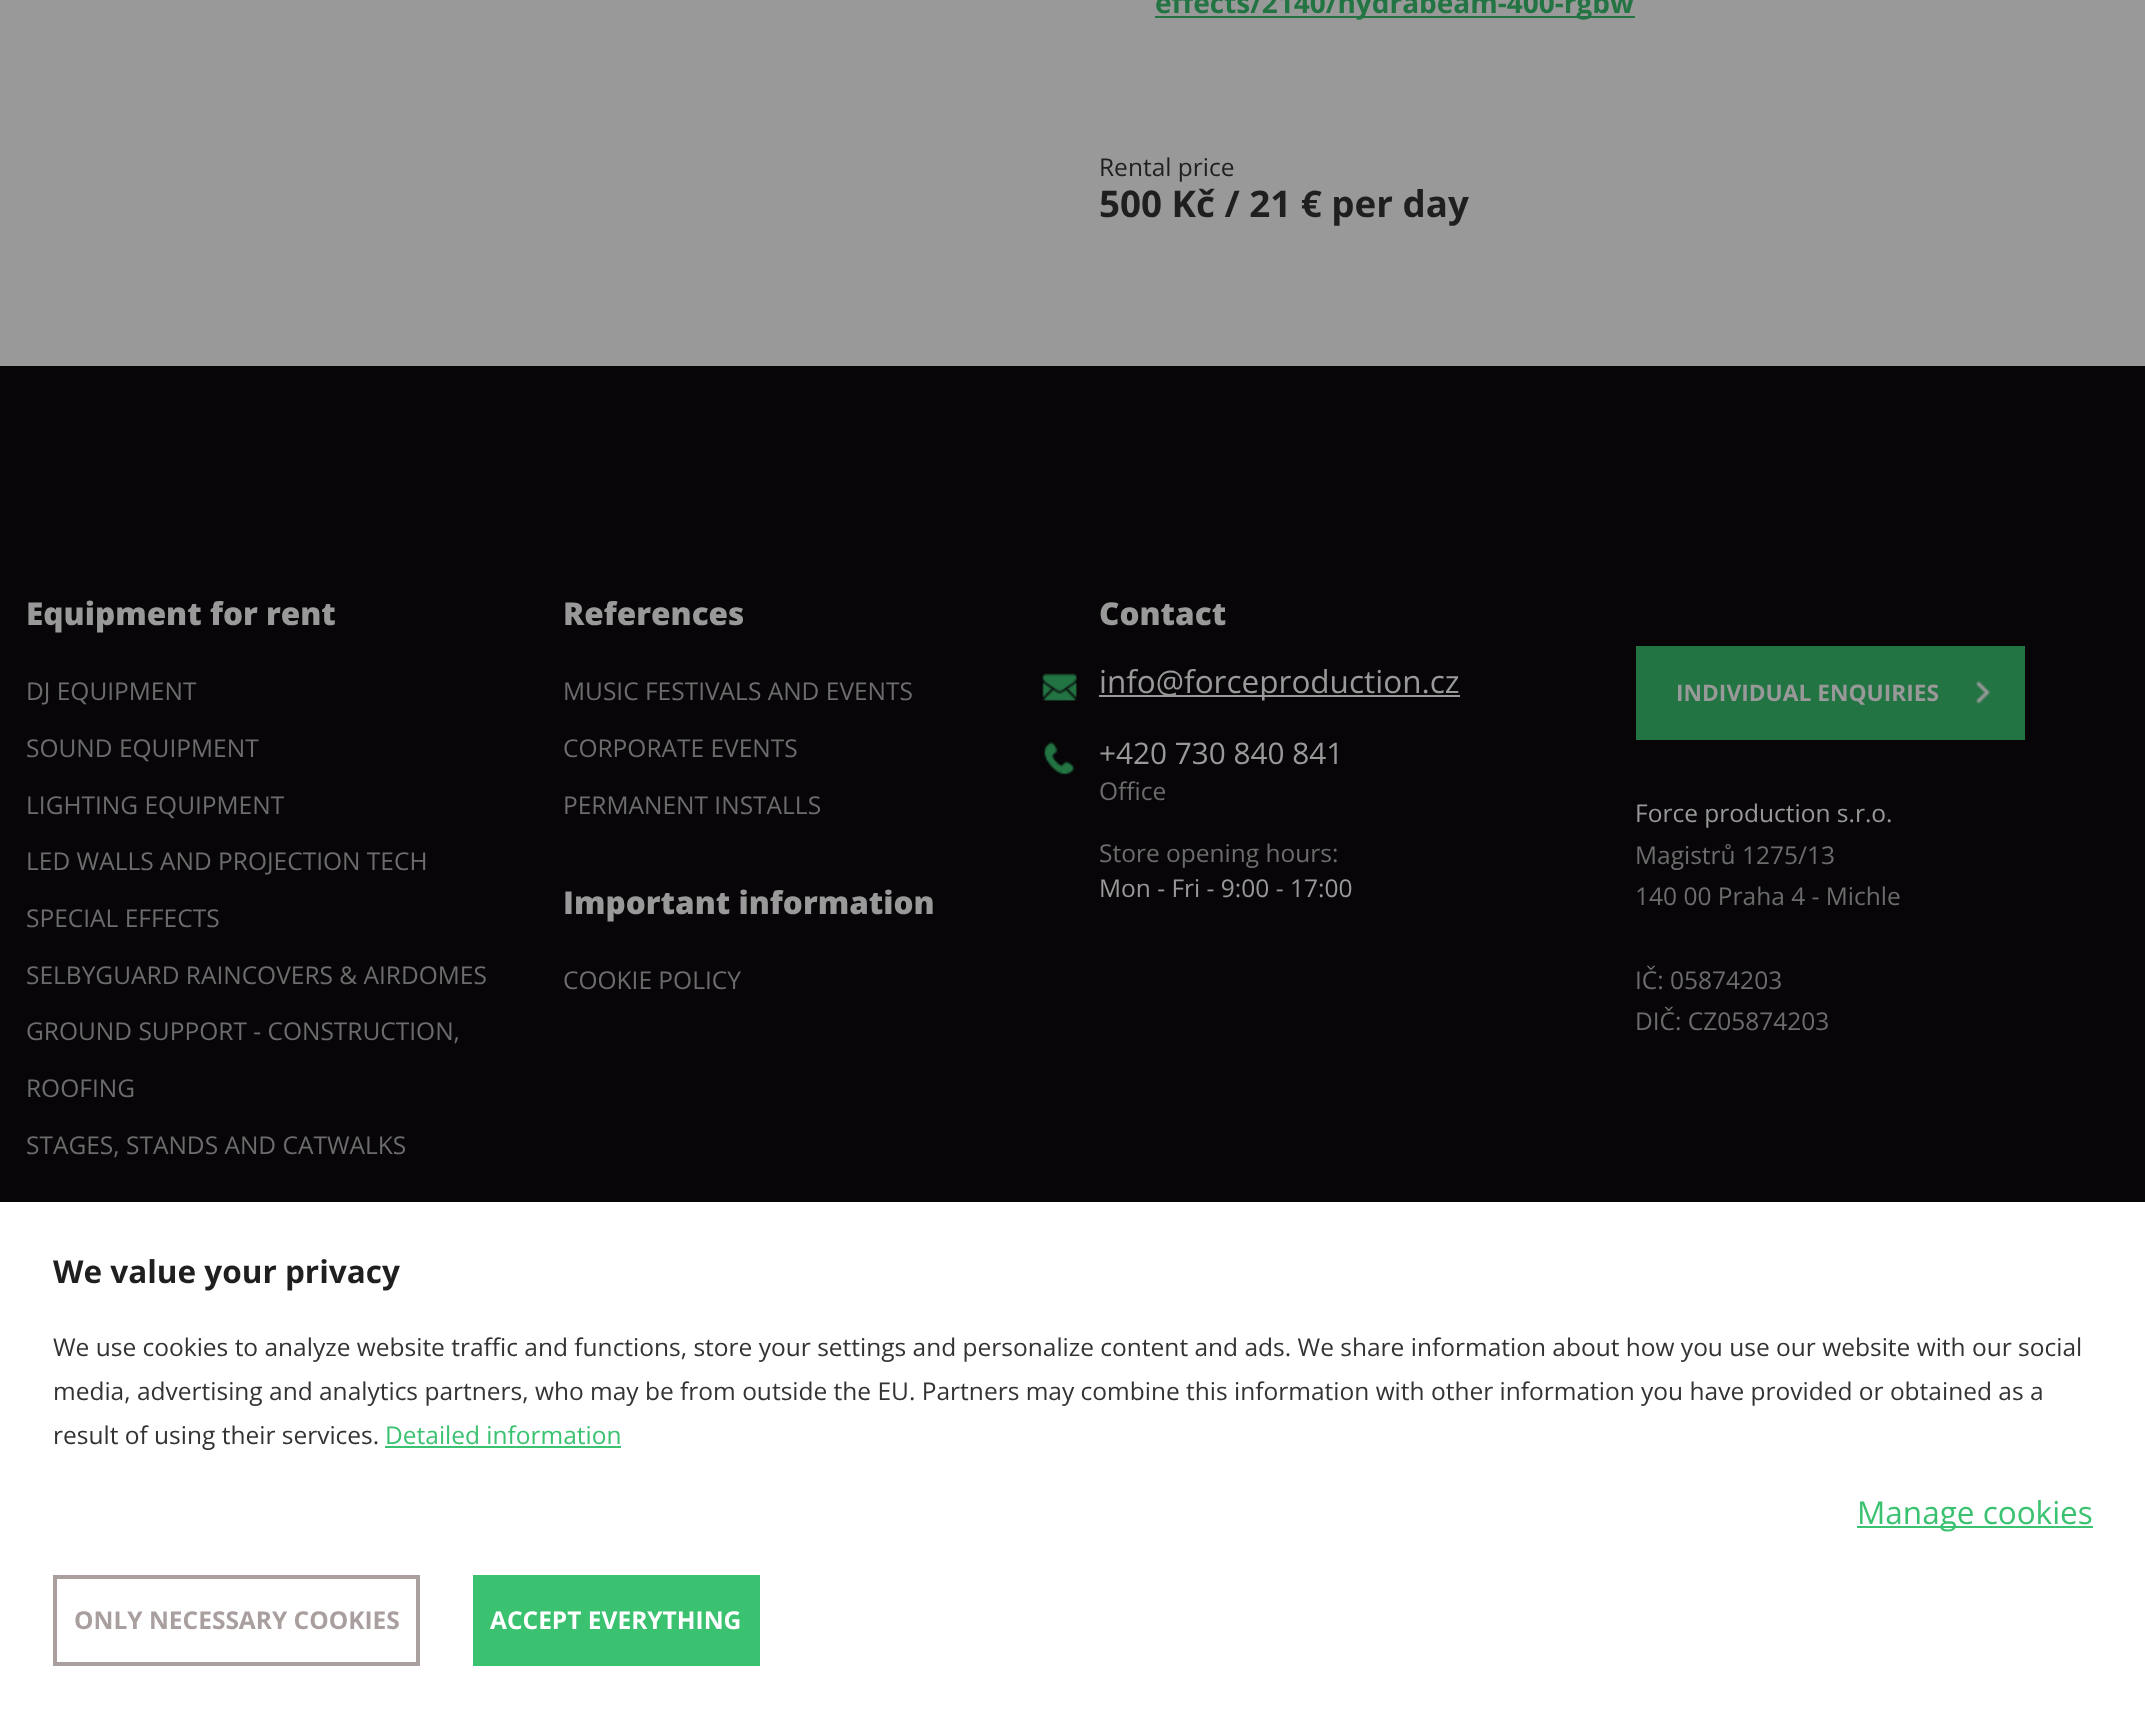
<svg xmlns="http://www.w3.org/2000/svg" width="2145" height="1718">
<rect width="100%" height="100%" fill="#999"/>
<rect x="1155" y="16" width="480" height="2" fill="#237443"/>
<text x="1155" y="13" style="font-family:Open Sans;font-size:28px;font-weight:bold;fill:#237443">effects/2140/hydrabeam-400-rgbw</text>
<text x="1099" y="176" style="font-family:Open Sans;font-size:24.5px;fill:#1f1f1f">Rental price</text>
<text x="1099" y="217" style="font-family:Open Sans;font-size:36.75px;font-weight:bold;fill:#1f1f1f">500 Kč / 21 € per day</text>
<rect y="366" width="2145" height="836" fill="#070508"/>
<text x="26" y="625" style="font-family:Open Sans;font-size:31.5px;font-weight:800;fill:#999">Equipment for rent</text>
<text x="26" y="700" style="font-family:Open Sans;font-size:24.5px;fill:#6c6c6c">DJ EQUIPMENT</text>
<text x="26" y="757" style="font-family:Open Sans;font-size:24.5px;fill:#6c6c6c">SOUND EQUIPMENT</text>
<text x="26" y="814" style="font-family:Open Sans;font-size:24.5px;fill:#6c6c6c">LIGHTING EQUIPMENT</text>
<text x="26" y="870" style="font-family:Open Sans;font-size:24.5px;fill:#6c6c6c">LED WALLS AND PROJECTION TECH</text>
<text x="26" y="927" style="font-family:Open Sans;font-size:24.5px;fill:#6c6c6c">SPECIAL EFFECTS</text>
<text x="26" y="984" style="font-family:Open Sans;font-size:24.5px;fill:#6c6c6c">SELBYGUARD RAINCOVERS &amp; AIRDOMES</text>
<text x="26" y="1040" style="font-family:Open Sans;font-size:24.5px;fill:#6c6c6c">GROUND SUPPORT - CONSTRUCTION,</text>
<text x="26" y="1097" style="font-family:Open Sans;font-size:24.5px;fill:#6c6c6c">ROOFING</text>
<text x="26" y="1154" style="font-family:Open Sans;font-size:24.5px;fill:#6c6c6c">STAGES, STANDS AND CATWALKS</text>
<text x="563" y="625" style="font-family:Open Sans;font-size:31.5px;font-weight:800;fill:#999">References</text>
<text x="563" y="700" style="font-family:Open Sans;font-size:24.5px;fill:#6c6c6c">MUSIC FESTIVALS AND EVENTS</text>
<text x="563" y="757" style="font-family:Open Sans;font-size:24.5px;fill:#6c6c6c">CORPORATE EVENTS</text>
<text x="563" y="814" style="font-family:Open Sans;font-size:24.5px;fill:#6c6c6c">PERMANENT INSTALLS</text>
<text x="563" y="914" style="font-family:Open Sans;font-size:31.5px;font-weight:800;fill:#999">Important information</text>
<text x="563" y="989" style="font-family:Open Sans;font-size:24.5px;fill:#6c6c6c">COOKIE POLICY</text>
<text x="1099" y="625" style="font-family:Open Sans;font-size:31.5px;font-weight:800;fill:#999">Contact</text>
<image x="1042" y="673" width="35" height="28" href="media/1.png"/>
<rect x="1099" y="695" width="361" height="2" fill="#999"/>
<text x="1099" y="693" style="font-family:Open Sans;font-size:31.5px;fill:#999">info@forceproduction.cz</text>
<image x="1044" y="741" width="31" height="34" href="media/2.png"/>
<text x="1099" y="764" style="font-family:Open Sans;font-size:29.75px;fill:#999">+420 730 840 841</text>
<text x="1099" y="800" style="font-family:Open Sans;font-size:24.5px;fill:#6c6c6c">Office</text>
<text x="1099" y="862" style="font-family:Open Sans;font-size:24.5px;fill:#6c6c6c">Store opening hours:</text>
<text x="1099" y="897" style="font-family:Open Sans;font-size:24.5px;fill:#999">Mon - Fri - 9:00 - 17:00</text>
<rect x="1636" y="646" width="389" height="94" fill="#237443"/>
<text x="1676" y="701" style="font-family:Open Sans;font-size:22.75px;font-weight:bold;fill:#999">INDIVIDUAL ENQUIRIES</text>
<image x="1975" y="680" width="16" height="25" href="media/3.png"/>
<text x="1635" y="822" style="font-family:Open Sans;font-size:24.5px;fill:#999">Force production s.r.o.</text>
<text x="1635" y="864" style="font-family:Open Sans;font-size:24.5px;fill:#6c6c6c">Magistrů 1275/13</text>
<text x="1635" y="905" style="font-family:Open Sans;font-size:24.5px;fill:#6c6c6c">140 00 Praha 4 - Michle</text>
<text x="1635" y="989" style="font-family:Open Sans;font-size:24.5px;fill:#6c6c6c">IČ: 05874203</text>
<text x="1635" y="1030" style="font-family:Open Sans;font-size:24.5px;fill:#6c6c6c">DIČ: CZ05874203</text>
<rect y="1202" width="2145" height="516" fill="#fff"/>
<text x="53" y="1283" style="font-family:Open Sans;font-size:31.5px;font-weight:bold;fill:#1f1f1f">We value your privacy</text>
<text x="53" y="1356" style="font-family:Open Sans;font-size:24.5px;fill:#333">We use cookies to analyze website traffic and functions, store your settings and personalize content and ads. We share information about how you use our website with our social</text>
<text x="53" y="1400" style="font-family:Open Sans;font-size:24.5px;fill:#333">media, advertising and analytics partners, who may be from outside the EU. Partners may combine this information with other information you have provided or obtained as a</text>
<text x="53" y="1444" style="font-family:Open Sans;font-size:24.5px;fill:#333">result of using their services.</text>
<text x="385" y="1444" style="font-family:Open Sans;font-size:24.5px;fill:#3ac270">Detailed information</text>
<rect x="385" y="1446" width="236" height="2" fill="#3ac270"/>
<rect x="1857" y="1526" width="236" height="2" fill="#3ac270"/>
<text x="1857" y="1524" style="font-family:Open Sans;font-size:31.5px;fill:#3ac270">Manage cookies</text>
<rect x="55" y="1577" width="363" height="87" fill="none" stroke="#a99f9e" stroke-width="4"/>
<text x="74" y="1629" style="font-family:Open Sans;font-size:24.5px;font-weight:bold;fill:#a99f9e">ONLY NECESSARY COOKIES</text>
<rect x="473" y="1575" width="287" height="91" fill="#3ac270"/>
<text x="490" y="1629" style="font-family:Open Sans;font-size:24.5px;font-weight:bold;fill:#fff">ACCEPT EVERYTHING</text>
</svg>
